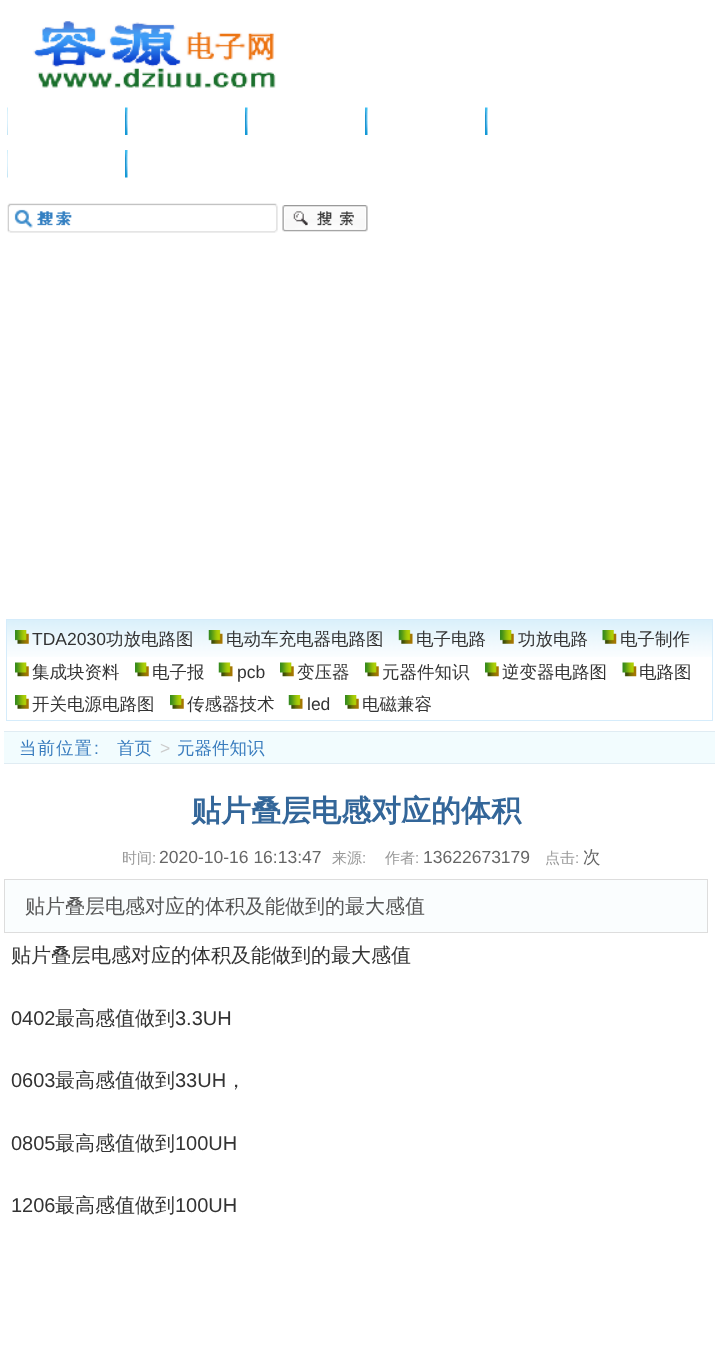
<svg xmlns="http://www.w3.org/2000/svg" width="718" height="1350">
<rect width="100%" height="100%" fill="#fff"/>
<image x="33" y="21" width="243" height="67" href="media/1.png"/>
<image x="7" y="107" width="1" height="28" href="media/2.png"/>
<image x="125" y="107" width="3" height="28" href="media/3.png"/>
<image x="245" y="107" width="3" height="28" href="media/3.png"/>
<image x="365" y="107" width="3" height="28" href="media/3.png"/>
<image x="485" y="107" width="3" height="28" href="media/3.png"/>
<image x="7" y="150" width="1" height="28" href="media/4.png"/>
<image x="125" y="150" width="3" height="28" href="media/5.png"/>
<image x="7" y="203" width="271" height="30" href="media/6.png"/>
<image x="282" y="205" width="86" height="27" href="media/7.png"/>
<image x="7" y="620" width="705" height="37" href="media/8.png"/>
<rect x="6.5" y="619.5" width="706" height="101" fill="none" stroke="#d5ecfb"/>
<image x="15" y="630" width="14" height="14" href="media/9.png"/>
<text x="32" y="645" style="font-family:Liberation Sans;font-size:17.5px;fill:#333">TDA2030</text>
<text x="106" y="645" style="font-family:WenQuanYi Zen Hei;font-size:17.5px;font-weight:500;fill:#333">功放电路图</text>
<image x="208" y="630" width="15" height="14" href="media/10.png"/>
<text x="226" y="645" style="font-family:WenQuanYi Zen Hei;font-size:17.5px;font-weight:500;fill:#333">电动车充电器电路图</text>
<image x="398" y="630" width="15" height="14" href="media/11.png"/>
<text x="416" y="645" style="font-family:WenQuanYi Zen Hei;font-size:17.5px;font-weight:500;fill:#333">电子电路</text>
<image x="500" y="630" width="14" height="14" href="media/12.png"/>
<text x="518" y="645" style="font-family:WenQuanYi Zen Hei;font-size:17.5px;font-weight:500;fill:#333">功放电路</text>
<image x="602" y="630" width="15" height="14" href="media/13.png"/>
<text x="620" y="645" style="font-family:WenQuanYi Zen Hei;font-size:17.5px;font-weight:500;fill:#333">电子制作</text>
<image x="15" y="662" width="14" height="15" href="media/14.png"/>
<text x="32" y="678" style="font-family:WenQuanYi Zen Hei;font-size:17.5px;font-weight:500;fill:#333">集成块资料</text>
<image x="135" y="662" width="14" height="15" href="media/14.png"/>
<text x="152" y="678" style="font-family:WenQuanYi Zen Hei;font-size:17.5px;font-weight:500;fill:#333">电子报</text>
<image x="218" y="662" width="15" height="15" href="media/15.png"/>
<text x="237" y="678" style="font-family:Liberation Sans;font-size:17.5px;fill:#333">pcb</text>
<image x="280" y="662" width="14" height="15" href="media/16.png"/>
<text x="297" y="678" style="font-family:WenQuanYi Zen Hei;font-size:17.5px;font-weight:500;fill:#333">变压器</text>
<image x="365" y="662" width="14" height="15" href="media/14.png"/>
<text x="382" y="678" style="font-family:WenQuanYi Zen Hei;font-size:17.5px;font-weight:500;fill:#333">元器件知识</text>
<image x="485" y="662" width="14" height="15" href="media/16.png"/>
<text x="502" y="678" style="font-family:WenQuanYi Zen Hei;font-size:17.5px;font-weight:500;fill:#333">逆变器电路图</text>
<image x="622" y="662" width="15" height="15" href="media/17.png"/>
<text x="639" y="678" style="font-family:WenQuanYi Zen Hei;font-size:17.5px;font-weight:500;fill:#333">电路图</text>
<image x="15" y="695" width="14" height="14" href="media/18.png"/>
<text x="32" y="710" style="font-family:WenQuanYi Zen Hei;font-size:17.5px;font-weight:500;fill:#333">开关电源电路图</text>
<image x="170" y="695" width="14" height="14" href="media/18.png"/>
<text x="187" y="710" style="font-family:WenQuanYi Zen Hei;font-size:17.5px;font-weight:500;fill:#333">传感器技术</text>
<image x="288" y="695" width="15" height="14" href="media/19.png"/>
<text x="307" y="710" style="font-family:Liberation Sans;font-size:17.5px;fill:#333">led</text>
<image x="345" y="695" width="14" height="14" href="media/18.png"/>
<text x="362" y="710" style="font-family:WenQuanYi Zen Hei;font-size:17.5px;font-weight:500;fill:#333">电磁兼容</text>
<rect x="4" y="732" width="711" height="31" fill="#f2fcfe"/>
<rect x="4" y="731" width="711" height="1" fill="#e0ecf3"/>
<rect x="4" y="763" width="711" height="1" fill="#e0ecf3"/>
<text x="19" y="754" style="font-family:WenQuanYi Zen Hei;font-size:17.5px;font-weight:500;letter-spacing:1px;fill:#397cbe">当前位置</text>
<text x="94" y="754" style="font-family:Liberation Sans;font-size:17.5px;letter-spacing:1px;fill:#397cbe">:</text>
<text x="117" y="754" style="font-family:WenQuanYi Zen Hei;font-size:17.5px;font-weight:500;fill:#397cbe">首页</text>
<text x="160" y="754" style="font-family:Liberation Sans;font-size:17.5px;fill:#ccc">&gt;</text>
<text x="177" y="754" style="font-family:WenQuanYi Zen Hei;font-size:17.5px;font-weight:500;fill:#397cbe">元器件知识</text>
<text x="191" y="821" style="font-family:WenQuanYi Zen Hei;font-size:30px;font-weight:bold;fill:#369">贴片叠层电感对应的体积</text>
<text x="122" y="863" style="font-family:WenQuanYi Zen Hei;font-size:15px;font-weight:500;fill:#999">时间</text>
<text x="152" y="863" style="font-family:Liberation Sans;font-size:15px;fill:#999">:</text>
<text x="159" y="863" style="font-family:Liberation Sans;font-size:17.5px;fill:#666">2020-10-16 16:13:47</text>
<text x="332" y="863" style="font-family:WenQuanYi Zen Hei;font-size:15px;font-weight:500;fill:#999">来源</text>
<text x="362" y="863" style="font-family:Liberation Sans;font-size:15px;fill:#999">:</text>
<text x="385" y="863" style="font-family:WenQuanYi Zen Hei;font-size:15px;font-weight:500;fill:#999">作者</text>
<text x="415" y="863" style="font-family:Liberation Sans;font-size:15px;fill:#999">:</text>
<text x="423" y="863" style="font-family:Liberation Sans;font-size:17.5px;fill:#666">13622673179</text>
<text x="545" y="863" style="font-family:WenQuanYi Zen Hei;font-size:15px;font-weight:500;fill:#999">点击</text>
<text x="575" y="863" style="font-family:Liberation Sans;font-size:15px;fill:#999">:</text>
<text x="583" y="863" style="font-family:WenQuanYi Zen Hei;font-size:17.5px;font-weight:500;fill:#666">次</text>
<rect x="4.5" y="879.5" width="703" height="53" fill="#fafdfe" stroke="#ddd"/>
<text x="25" y="913" style="font-family:WenQuanYi Zen Hei;font-size:20px;font-weight:500;fill:#555">贴片叠层电感对应的体积及能做到的最大感值</text>
<text x="11" y="962" style="font-family:WenQuanYi Zen Hei;font-size:20px;font-weight:500;fill:#333">贴片叠层电感对应的体积及能做到的最大感值</text>
<text x="11" y="1025" style="font-family:Liberation Sans;font-size:20px;fill:#333">0402</text>
<text x="55" y="1025" style="font-family:WenQuanYi Zen Hei;font-size:20px;font-weight:500;fill:#333">最高感值做到</text>
<text x="175" y="1025" style="font-family:Liberation Sans;font-size:20px;fill:#333">3.3UH</text>
<text x="11" y="1087" style="font-family:Liberation Sans;font-size:20px;fill:#333">0603</text>
<text x="55" y="1087" style="font-family:WenQuanYi Zen Hei;font-size:20px;font-weight:500;fill:#333">最高感值做到</text>
<text x="175" y="1087" style="font-family:Liberation Sans;font-size:20px;fill:#333">33UH</text>
<text x="226" y="1087" style="font-family:WenQuanYi Zen Hei;font-size:20px;font-weight:500;fill:#333">，</text>
<text x="11" y="1150" style="font-family:Liberation Sans;font-size:20px;fill:#333">0805</text>
<text x="55" y="1150" style="font-family:WenQuanYi Zen Hei;font-size:20px;font-weight:500;fill:#333">最高感值做到</text>
<text x="175" y="1150" style="font-family:Liberation Sans;font-size:20px;fill:#333">100UH</text>
<text x="11" y="1212" style="font-family:Liberation Sans;font-size:20px;fill:#333">1206</text>
<text x="55" y="1212" style="font-family:WenQuanYi Zen Hei;font-size:20px;font-weight:500;fill:#333">最高感值做到</text>
<text x="175" y="1212" style="font-family:Liberation Sans;font-size:20px;fill:#333">100UH</text>
</svg>
